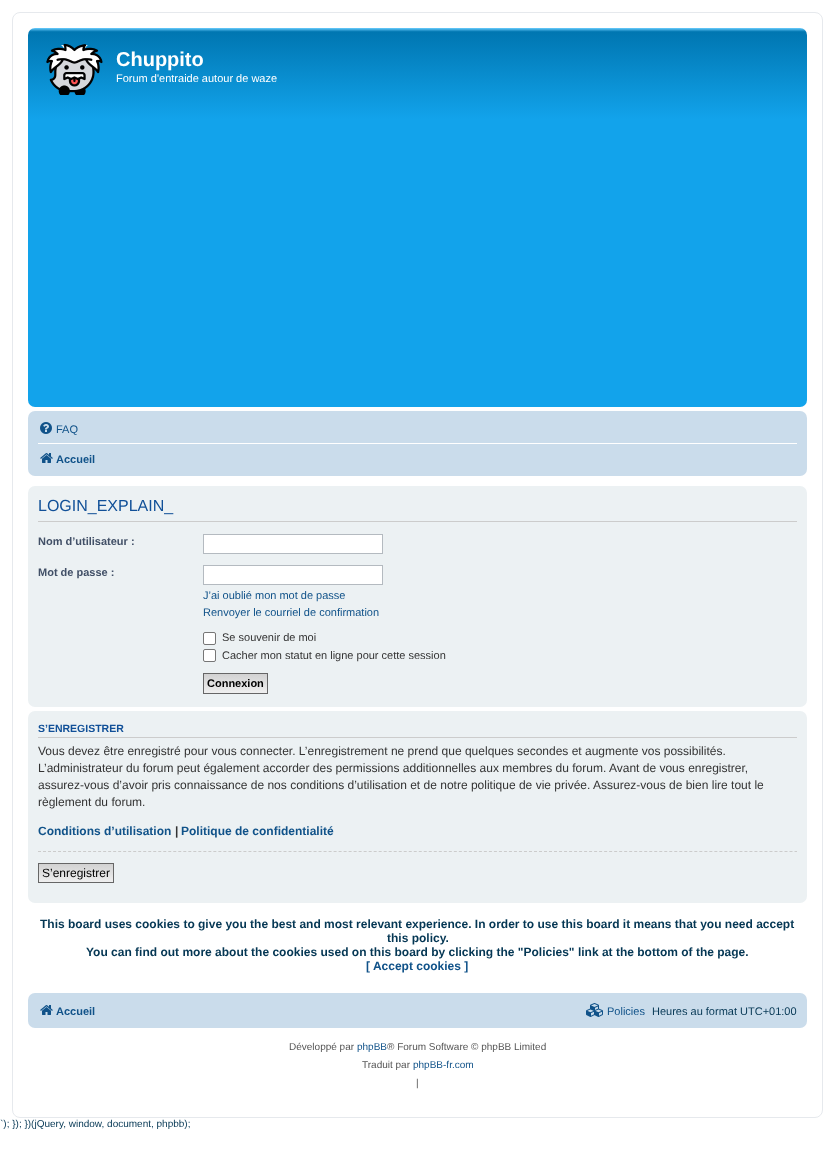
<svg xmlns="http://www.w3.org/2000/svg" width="835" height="1149">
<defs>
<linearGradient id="g1" gradientUnits="userSpaceOnUse" x1="418" y1="28" x2="418" y2="407"><stop offset="0" stop-color="#6aceff"/><stop offset="0.01" stop-color="#0076b1"/><stop offset="0.24" stop-color="#12a3eb"/><stop offset="1" stop-color="#12a3eb"/></linearGradient>
<linearGradient id="g2" gradientUnits="userSpaceOnUse" x1="236" y1="674" x2="236" y2="693"><stop offset="0" stop-color="#d2d2d2"/><stop offset="1" stop-color="#efefef"/></linearGradient>
<linearGradient id="g3" gradientUnits="userSpaceOnUse" x1="76" y1="864" x2="76" y2="882"><stop offset="0" stop-color="#d2d2d2"/><stop offset="1" stop-color="#efefef"/></linearGradient>
</defs>
<rect width="100%" height="100%" fill="#fff"/>
<rect x="12.5" y="12.5" width="810" height="1105" rx="7.5" fill="none" stroke="#e6e9ed"/>
<rect x="28" y="28" width="779" height="379" rx="7" fill="url(#g1)"/>
<image x="46" y="43" width="57" height="52" href="media/1.png"/>
<text x="116" y="66" style="font-family:Liberation Sans;font-size:20px;font-weight:bold;fill:#fff">Chuppito</text>
<text x="116" y="82" style="font-family:Liberation Sans;font-size:11px;fill:#fff">Forum d'entraide autour de waze</text>
<rect x="28" y="411" width="779" height="65" rx="7" fill="#cadceb"/>
<image x="40" y="422" width="12" height="12" href="media/2.png"/>
<text x="56" y="433" style="font-family:Liberation Sans;font-size:11px;fill:#105289">FAQ</text>
<rect x="38" y="443" width="759" height="1" fill="#fff"/>
<image x="40" y="453" width="13" height="10" href="media/3.png"/>
<text x="56" y="463" style="font-family:Liberation Sans;font-size:11px;font-weight:bold;fill:#105289">Accueil</text>
<rect x="28" y="486" width="779" height="221" rx="7" fill="#ecf1f3"/>
<rect x="38" y="521" width="759" height="1" fill="#ccc"/>
<text x="38" y="511" style="font-family:Liberation Sans;font-size:16px;fill:#115098">LOGIN_EXPLAIN_</text>
<text x="38" y="545" style="font-family:Liberation Sans;font-size:11px;font-weight:bold;fill:#425067">Nom d’utilisateur :</text>
<rect x="203.5" y="534.5" width="179" height="19" fill="#fff" stroke="#b4bac0"/>
<text x="38" y="576" style="font-family:Liberation Sans;font-size:11px;font-weight:bold;fill:#425067">Mot de passe :</text>
<rect x="203.5" y="565.5" width="179" height="19" fill="#fff" stroke="#b4bac0"/>
<text x="203" y="599" style="font-family:Liberation Sans;font-size:11px;fill:#105289">J’ai oublié mon mot de passe</text>
<text x="203" y="616" style="font-family:Liberation Sans;font-size:11px;fill:#105289">Renvoyer le courriel de confirmation</text>
<rect x="203.5" y="632.5" width="12" height="12" rx="1.5" fill="#fff" stroke="#767676"/>
<text x="222" y="641" style="font-family:Liberation Sans;font-size:11px;fill:#333">Se souvenir de moi</text>
<rect x="203.5" y="649.5" width="12" height="12" rx="1.5" fill="#fff" stroke="#767676"/>
<text x="222" y="659" style="font-family:Liberation Sans;font-size:11px;fill:#333">Cacher mon statut en ligne pour cette session</text>
<rect x="204" y="674" width="63" height="19" fill="url(#g2)"/>
<rect x="203.5" y="673.5" width="64" height="20" fill="none" stroke="#666"/>
<text x="207" y="687" style="font-family:Liberation Sans;font-size:11px;font-weight:bold;fill:#000">Connexion</text>
<rect x="28" y="711" width="779" height="192" rx="7" fill="#ecf1f3"/>
<rect x="38" y="737" width="759" height="1" fill="#ccc"/>
<text x="38" y="732" style="font-family:Liberation Sans;font-size:10.5px;font-weight:bold;fill:#115098">S’ENREGISTRER</text>
<text x="38" y="755" style="font-family:Liberation Sans;font-size:12px;fill:#333">Vous devez être enregistré pour vous connecter. L’enregistrement ne prend que quelques secondes et augmente vos possibilités.</text>
<text x="38" y="772" style="font-family:Liberation Sans;font-size:12px;fill:#333">L’administrateur du forum peut également accorder des permissions additionnelles aux membres du forum. Avant de vous enregistrer,</text>
<text x="38" y="789" style="font-family:Liberation Sans;font-size:12px;fill:#333">assurez-vous d’avoir pris connaissance de nos conditions d’utilisation et de notre politique de vie privée. Assurez-vous de bien lire tout le</text>
<text x="38" y="806" style="font-family:Liberation Sans;font-size:12px;fill:#333">règlement du forum.</text>
<text x="38" y="835" style="font-family:Liberation Sans;font-size:12px;font-weight:bold;fill:#105289">Conditions d’utilisation</text>
<text x="175" y="835" style="font-family:Liberation Sans;font-size:12px;font-weight:bold;fill:#333">|</text>
<text x="181" y="835" style="font-family:Liberation Sans;font-size:12px;font-weight:bold;fill:#105289">Politique de confidentialité</text>
<path d="M38 851.5h759" fill="none" stroke="#ccc" stroke-dasharray="3 2.01"/>
<rect x="39" y="864" width="74" height="18" fill="url(#g3)"/>
<rect x="38.5" y="863.5" width="75" height="19" fill="none" stroke="#666"/>
<text x="42" y="877" style="font-family:Liberation Sans;font-size:12px;fill:#000">S’enregistrer</text>
<text x="40" y="928" style="font-family:Liberation Sans;font-size:12px;font-weight:bold;fill:#053754">This board uses cookies to give you the best and most relevant experience. In order to use this board it means that you need accept</text>
<text x="387" y="942" style="font-family:Liberation Sans;font-size:12px;font-weight:bold;fill:#053754">this policy.</text>
<text x="86" y="956" style="font-family:Liberation Sans;font-size:12px;font-weight:bold;fill:#053754">You can find out more about the cookies used on this board by clicking the "Policies" link at the bottom of the page.</text>
<text x="366" y="970" style="font-family:Liberation Sans;font-size:12px;font-weight:bold;fill:#105289">[ Accept cookies ]</text>
<rect x="28" y="993" width="779" height="35" rx="7" fill="#cadceb"/>
<image x="40" y="1005" width="13" height="10" href="media/3.png"/>
<text x="56" y="1015" style="font-family:Liberation Sans;font-size:11px;font-weight:bold;fill:#105289">Accueil</text>
<image x="586" y="1003" width="17" height="14" href="media/4.png"/>
<text x="607" y="1015" style="font-family:Liberation Sans;font-size:11px;fill:#105289">Policies</text>
<text x="652" y="1015" style="font-family:Liberation Sans;font-size:11px;fill:#053754">Heures au format UTC+01:00</text>
<text x="289" y="1050" style="font-family:Liberation Sans;font-size:10px;fill:#555">Développé par</text>
<text x="357" y="1050" style="font-family:Liberation Sans;font-size:10px;fill:#105289">phpBB</text>
<text x="387" y="1050" style="font-family:Liberation Sans;font-size:10px;fill:#555">® Forum Software © phpBB Limited</text>
<text x="362" y="1068" style="font-family:Liberation Sans;font-size:10px;fill:#555">Traduit par</text>
<text x="413" y="1068" style="font-family:Liberation Sans;font-size:10px;fill:#105289">phpBB-fr.com</text>
<text x="416" y="1086" style="font-family:Liberation Sans;font-size:10px;fill:#555">|</text>
<text x="0" y="1127" style="font-family:Liberation Sans;font-size:10px;fill:#053754">`); }); })(jQuery, window, document, phpbb);</text>
</svg>
